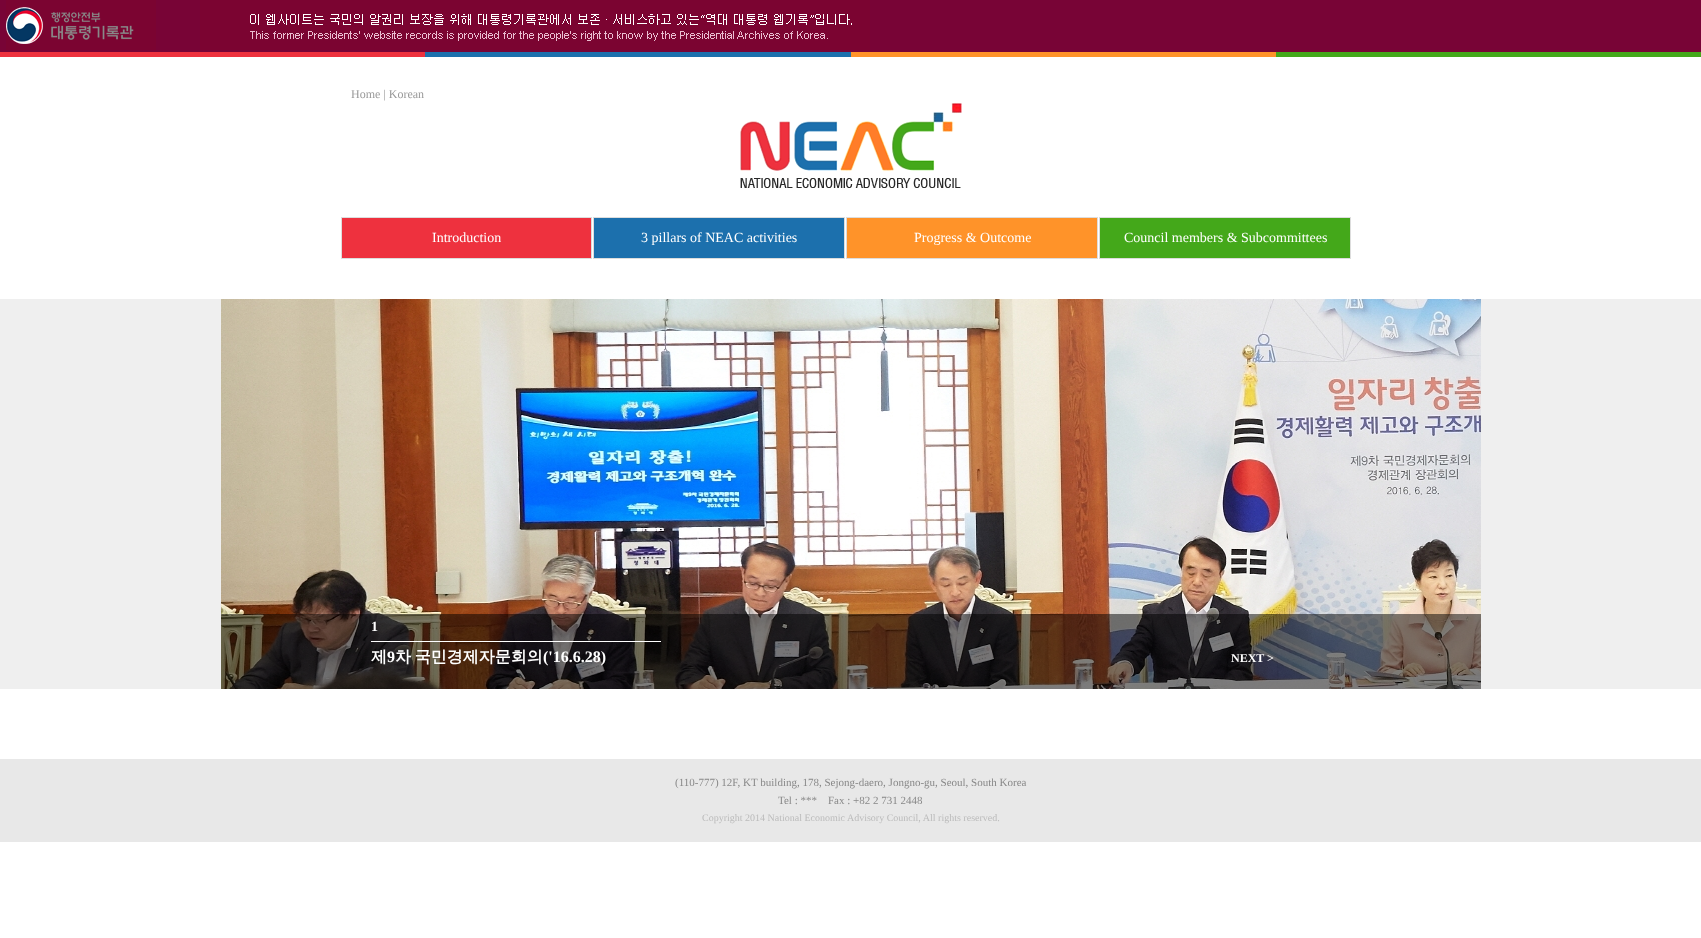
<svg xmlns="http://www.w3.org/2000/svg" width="1701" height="938">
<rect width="100%" height="100%" fill="#fff"/>
<rect width="1701" height="52" fill="#780436"/>
<image x="6" y="0" width="150" height="50" href="media/1.png"/>
<image x="200" y="0" width="670" height="50" href="media/2.png"/>
<rect y="52" width="425" height="5" fill="#ee313e"/>
<rect x="425" y="52" width="426" height="5" fill="#1c70ad"/>
<rect x="851" y="52" width="425" height="5" fill="#ff9329"/>
<rect x="1276" y="52" width="425" height="5" fill="#44a81a"/>
<text x="351" y="98" style="font-family:Liberation Serif;font-size:12px;fill:#999">Home | Korean</text>
<image x="740" y="102" width="222" height="86" href="media/3.png"/>
<rect x="341.5" y="217.5" width="250" height="41" fill="#ee313e" stroke="#ddd"/>
<text x="432" y="242" style="font-family:Liberation Serif;font-size:14px;fill:#fff">Introduction</text>
<rect x="593.5" y="217.5" width="251" height="41" fill="#1c70ad" stroke="#ddd"/>
<text x="641" y="242" style="font-family:Liberation Serif;font-size:14px;fill:#fff">3 pillars of NEAC activities</text>
<rect x="846.5" y="217.5" width="251" height="41" fill="#ff9329" stroke="#ddd"/>
<text x="914" y="242" style="font-family:Liberation Serif;font-size:14px;fill:#fff">Progress &amp; Outcome</text>
<rect x="1099.5" y="217.5" width="251" height="41" fill="#44a81a" stroke="#ddd"/>
<text x="1124" y="242" style="font-family:Liberation Serif;font-size:14px;fill:#fff">Council members &amp; Subcommittees</text>
<rect y="299" width="1701" height="390" fill="#efefef"/>
<image x="221" y="299" width="1260" height="390" href="media/4.png"/>
<rect x="221" y="614" width="1260" height="75" fill="#00000080"/>
<text x="371" y="631" style="font-family:Liberation Serif;font-size:14px;font-weight:bold;fill:#fff">1</text>
<rect x="371" y="641" width="290" height="1" fill="#fff"/>
<text x="371" y="662" style="font-family:WenQuanYi Zen Hei;font-size:16px;font-weight:bold;fill:#fff">제</text>
<text x="387" y="662" style="font-family:Liberation Serif;font-size:16px;font-weight:bold;fill:#fff">9</text>
<text x="395" y="662" word-spacing="-1" style="font-family:WenQuanYi Zen Hei;font-size:16px;font-weight:bold;fill:#fff">차 국민경제자문회의</text>
<text x="543" y="662" style="font-family:Liberation Serif;font-size:16px;font-weight:bold;fill:#fff">('16.6.28)</text>
<text x="1231" y="662" style="font-family:Liberation Serif;font-size:12px;font-weight:bold;fill:#fff">NEXT &gt;</text>
<rect y="759" width="1701" height="83" fill="#e8e8e8"/>
<text x="675" y="786" style="font-family:Liberation Serif;font-size:11px;fill:#888">(110-777) 12F, KT building, 178, Sejong-daero, Jongno-gu, Seoul, South Korea</text>
<text x="778" y="804" style="font-family:Liberation Serif;font-size:11px;fill:#888" xml:space="preserve">Tel : ***    Fax : +82 2 731 2448</text>
<text x="702" y="821" style="font-family:Liberation Serif;font-size:10px;fill:#bbb">Copyright 2014 National Economic Advisory Council, All rights reserved.</text>
</svg>
